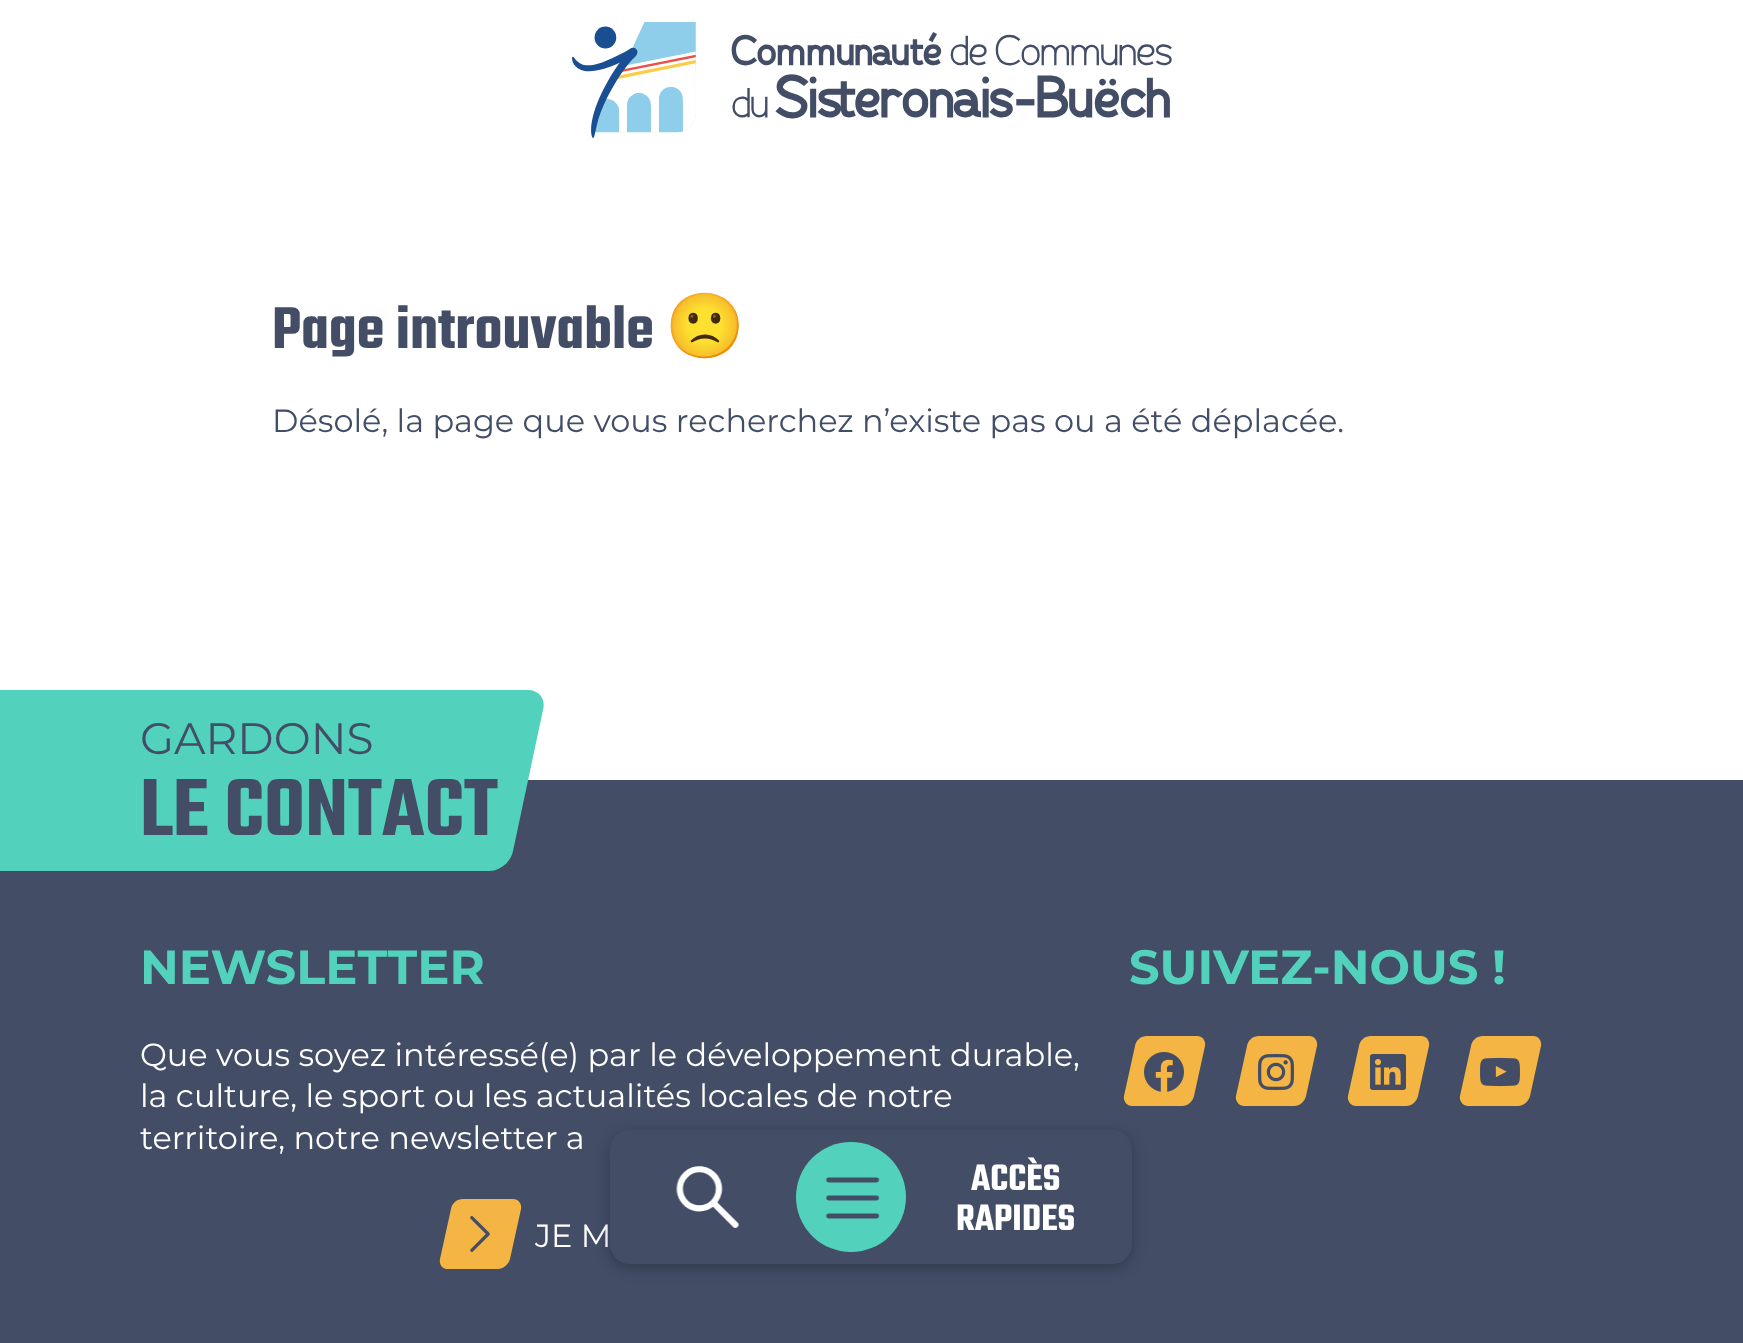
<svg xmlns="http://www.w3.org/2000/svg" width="1743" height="1343">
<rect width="100%" height="100%" fill="#fff"/>
<text x="272" y="348" style="font-family:Teko;font-size:64px;font-weight:600;fill:#434d66">Page introuvable</text>
<text x="665" y="348" style="font-family:Noto Color Emoji;font-size:64px;font-weight:bold;fill:#434d66">🙁</text>
<text x="272" y="432" style="font-family:Montserrat;font-size:32px;fill:#434d66">Désolé, la page que vous recherchez n’existe pas ou a été déplacée.</text>
<rect y="780" width="1743" height="563" fill="#434d66"/>
<path d="M-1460 690h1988c11 0 18 9 15 20l-30 141c-2 11-13 20-24 20h-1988z" fill="#52d1bd"/>
<text x="140" y="754" style="font-family:Montserrat;font-size:44px;fill:#434d66">GARDONS</text>
<text x="140" y="835" style="font-family:Teko;font-size:88px;font-weight:600;fill:#434d66">LE CONTACT</text>
<text x="140" y="984" style="font-family:Montserrat;font-size:48px;font-weight:bold;fill:#52d1bd">NEWSLETTER</text>
<text x="140" y="1066" style="font-family:Montserrat;font-size:32px;fill:#fff">Que vous soyez intéressé(e) par le développement durable,</text>
<text x="140" y="1107" style="font-family:Montserrat;font-size:32px;fill:#fff">la culture, le sport ou les actualités locales de notre</text>
<text x="140" y="1149" style="font-family:Montserrat;font-size:32px;fill:#fff">territoire, notre newsletter a</text>
<path d="M463 1199h50c5 0 9 4 8 10l-11 50c-1 5-7 10-12 10h-50c-6 0-9-5-8-10l11-50c1-6 6-10 12-10z" fill="#f4b545"/>
<image x="470" y="1216" width="20" height="36" href="media/1.png"/>
<text x="535" y="1247" style="font-family:Montserrat;font-size:32px;fill:#fff">JE M</text>
<text x="1129" y="984" style="font-family:Montserrat;font-size:48px;font-weight:bold;fill:#52d1bd">SUIVEZ-NOUS !</text>
<path d="M1147 1036h50c5 0 9 4 8 10l-11 50c-1 5-6 10-12 10h-50c-5 0-9-5-8-10l11-50c1-6 6-10 12-10z" fill="#f4b545"/>
<image x="1144" y="1052" width="40" height="40" href="media/2.png"/>
<path d="M1259 1036h50c5 0 9 4 8 10l-11 50c-1 5-6 10-12 10h-50c-5 0-9-5-8-10l11-50c1-6 6-10 12-10z" fill="#f4b545"/>
<image x="1258" y="1054" width="36" height="36" href="media/3.png"/>
<path d="M1371 1036h50c5 0 9 4 8 10l-11 50c-1 5-6 10-12 10h-50c-5 0-9-5-8-10l11-50c1-6 6-10 12-10z" fill="#f4b545"/>
<image x="1370" y="1054" width="36" height="36" href="media/4.png"/>
<path d="M1483 1036h50c5 0 9 4 8 10l-11 50c-1 5-6 10-12 10h-50c-5 0-9-5-8-10l11-50c1-6 6-10 12-10z" fill="#f4b545"/>
<image x="1480" y="1057" width="40" height="30" href="media/5.png"/>
<image x="572" y="22" width="600" height="116" href="media/6.png"/>
<rect x="610" y="1134" width="522" height="134" rx="20" fill="#00000040" filter="blur(7px)"/>
<rect x="611" y="1131" width="520" height="132" rx="19" fill="#434d66" stroke="#434d66" stroke-width="2"/>
<image x="676" y="1166" width="63" height="62" href="media/7.png"/>
<circle cx="851" cy="1197" r="55" fill="#52d1bd"/>
<image x="825" y="1177" width="55" height="42" href="media/8.png"/>
<text x="971" y="1190" style="font-family:Teko;font-size:40px;font-weight:600;fill:#fff">ACCÈS</text>
<text x="956" y="1230" style="font-family:Teko;font-size:40px;font-weight:600;fill:#fff">RAPIDES</text>
</svg>
